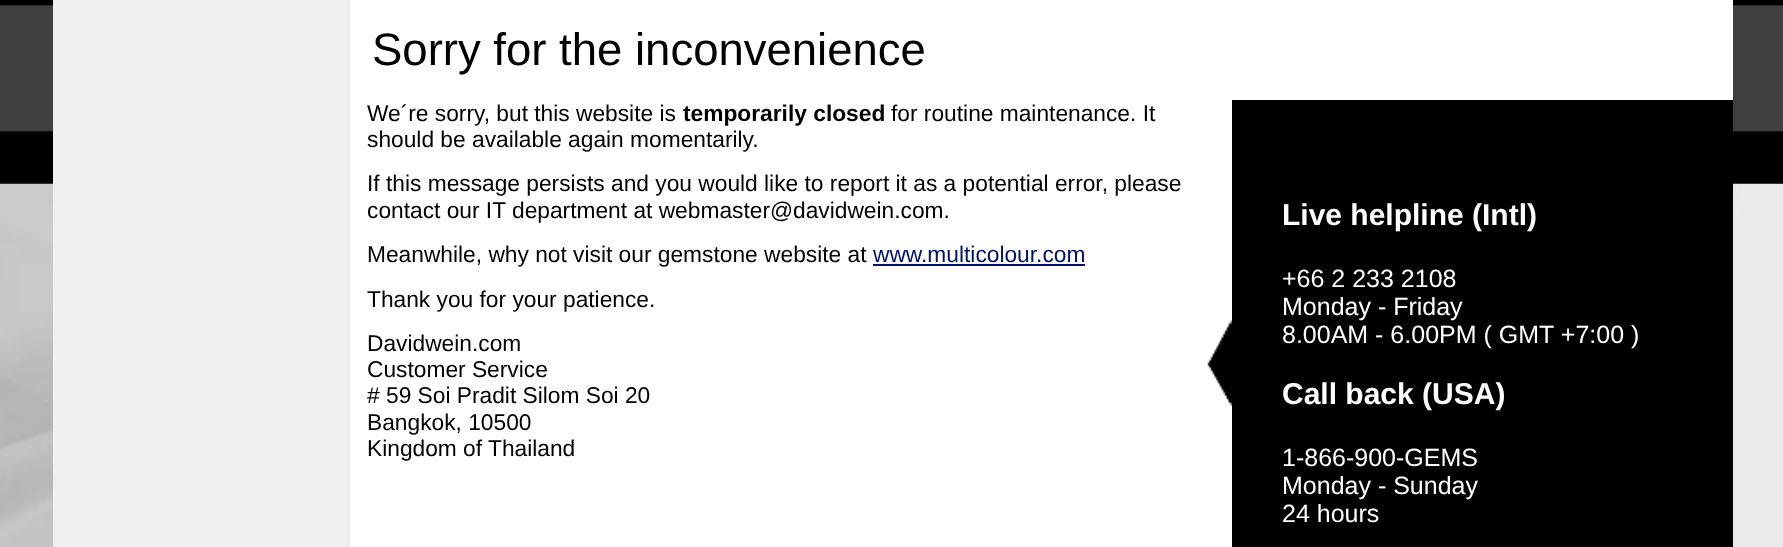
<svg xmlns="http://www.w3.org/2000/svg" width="1783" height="547">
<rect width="100%" height="100%" fill="#fff"/>
<image x="0" y="183" width="1783" height="364" href="media/1.png"/>
<image x="0" y="0" width="1783" height="184" href="media/2.png"/>
<rect x="53" width="297" height="547" fill="#f0f0f0"/>
<rect x="350" width="1383" height="547" fill="#fff"/>
<text x="372" y="65" style="font-family:Liberation Sans;font-size:45.5px;fill:#000">Sorry for the inconvenience</text>
<text x="367" y="121" style="font-family:Liberation Sans;font-size:22.75px;fill:#000">We´re sorry, but this website is</text>
<text x="683" y="121" style="font-family:Liberation Sans;font-size:22.75px;font-weight:bold;fill:#000">temporarily closed</text>
<text x="891" y="121" style="font-family:Liberation Sans;font-size:22.75px;fill:#000">for routine maintenance. It</text>
<text x="367" y="147" style="font-family:Liberation Sans;font-size:22.75px;fill:#000">should be available again momentarily.</text>
<text x="367" y="191" style="font-family:Liberation Sans;font-size:22.75px;fill:#000">If this message persists and you would like to report it as a potential error, please</text>
<text x="367" y="218" style="font-family:Liberation Sans;font-size:22.75px;fill:#000">contact our IT department at webmaster@davidwein.com.</text>
<rect x="1232" y="100" width="501" height="447" fill="#000"/>
<image x="1207" y="320" width="25" height="87" href="media/3.png"/>
<text x="1282" y="225" style="font-family:Liberation Sans;font-size:30px;font-weight:bold;fill:#fff">Live helpline (Intl)</text>
<text x="1282" y="287" style="font-family:Liberation Sans;font-size:25px;fill:#fff">+66 2 233 2108</text>
<text x="1282" y="315" style="font-family:Liberation Sans;font-size:25px;fill:#fff">Monday - Friday</text>
<text x="1282" y="343" style="font-family:Liberation Sans;font-size:25px;fill:#fff">8.00AM - 6.00PM ( GMT +7:00 )</text>
<text x="1282" y="404" style="font-family:Liberation Sans;font-size:30px;font-weight:bold;fill:#fff">Call back (USA)</text>
<text x="1282" y="466" style="font-family:Liberation Sans;font-size:25px;fill:#fff">1-866-900-GEMS</text>
<text x="1282" y="494" style="font-family:Liberation Sans;font-size:25px;fill:#fff">Monday - Sunday</text>
<text x="1282" y="522" style="font-family:Liberation Sans;font-size:25px;fill:#fff">24 hours</text>
<text x="367" y="262" style="font-family:Liberation Sans;font-size:22.75px;fill:#000">Meanwhile, why not visit our gemstone website at</text>
<text x="873" y="262" style="font-family:Liberation Sans;font-size:22.75px;fill:#016">www.multicolour.com</text>
<rect x="873" y="264" width="212" height="2" fill="#016"/>
<text x="367" y="307" style="font-family:Liberation Sans;font-size:22.75px;fill:#000">Thank you for your patience.</text>
<text x="367" y="351" style="font-family:Liberation Sans;font-size:22.75px;fill:#000">Davidwein.com</text>
<text x="367" y="377" style="font-family:Liberation Sans;font-size:22.75px;fill:#000">Customer Service</text>
<text x="367" y="403" style="font-family:Liberation Sans;font-size:22.75px;fill:#000"># 59 Soi Pradit Silom Soi 20</text>
<text x="367" y="430" style="font-family:Liberation Sans;font-size:22.75px;fill:#000">Bangkok, 10500</text>
<text x="367" y="456" style="font-family:Liberation Sans;font-size:22.75px;fill:#000">Kingdom of Thailand</text>
</svg>
